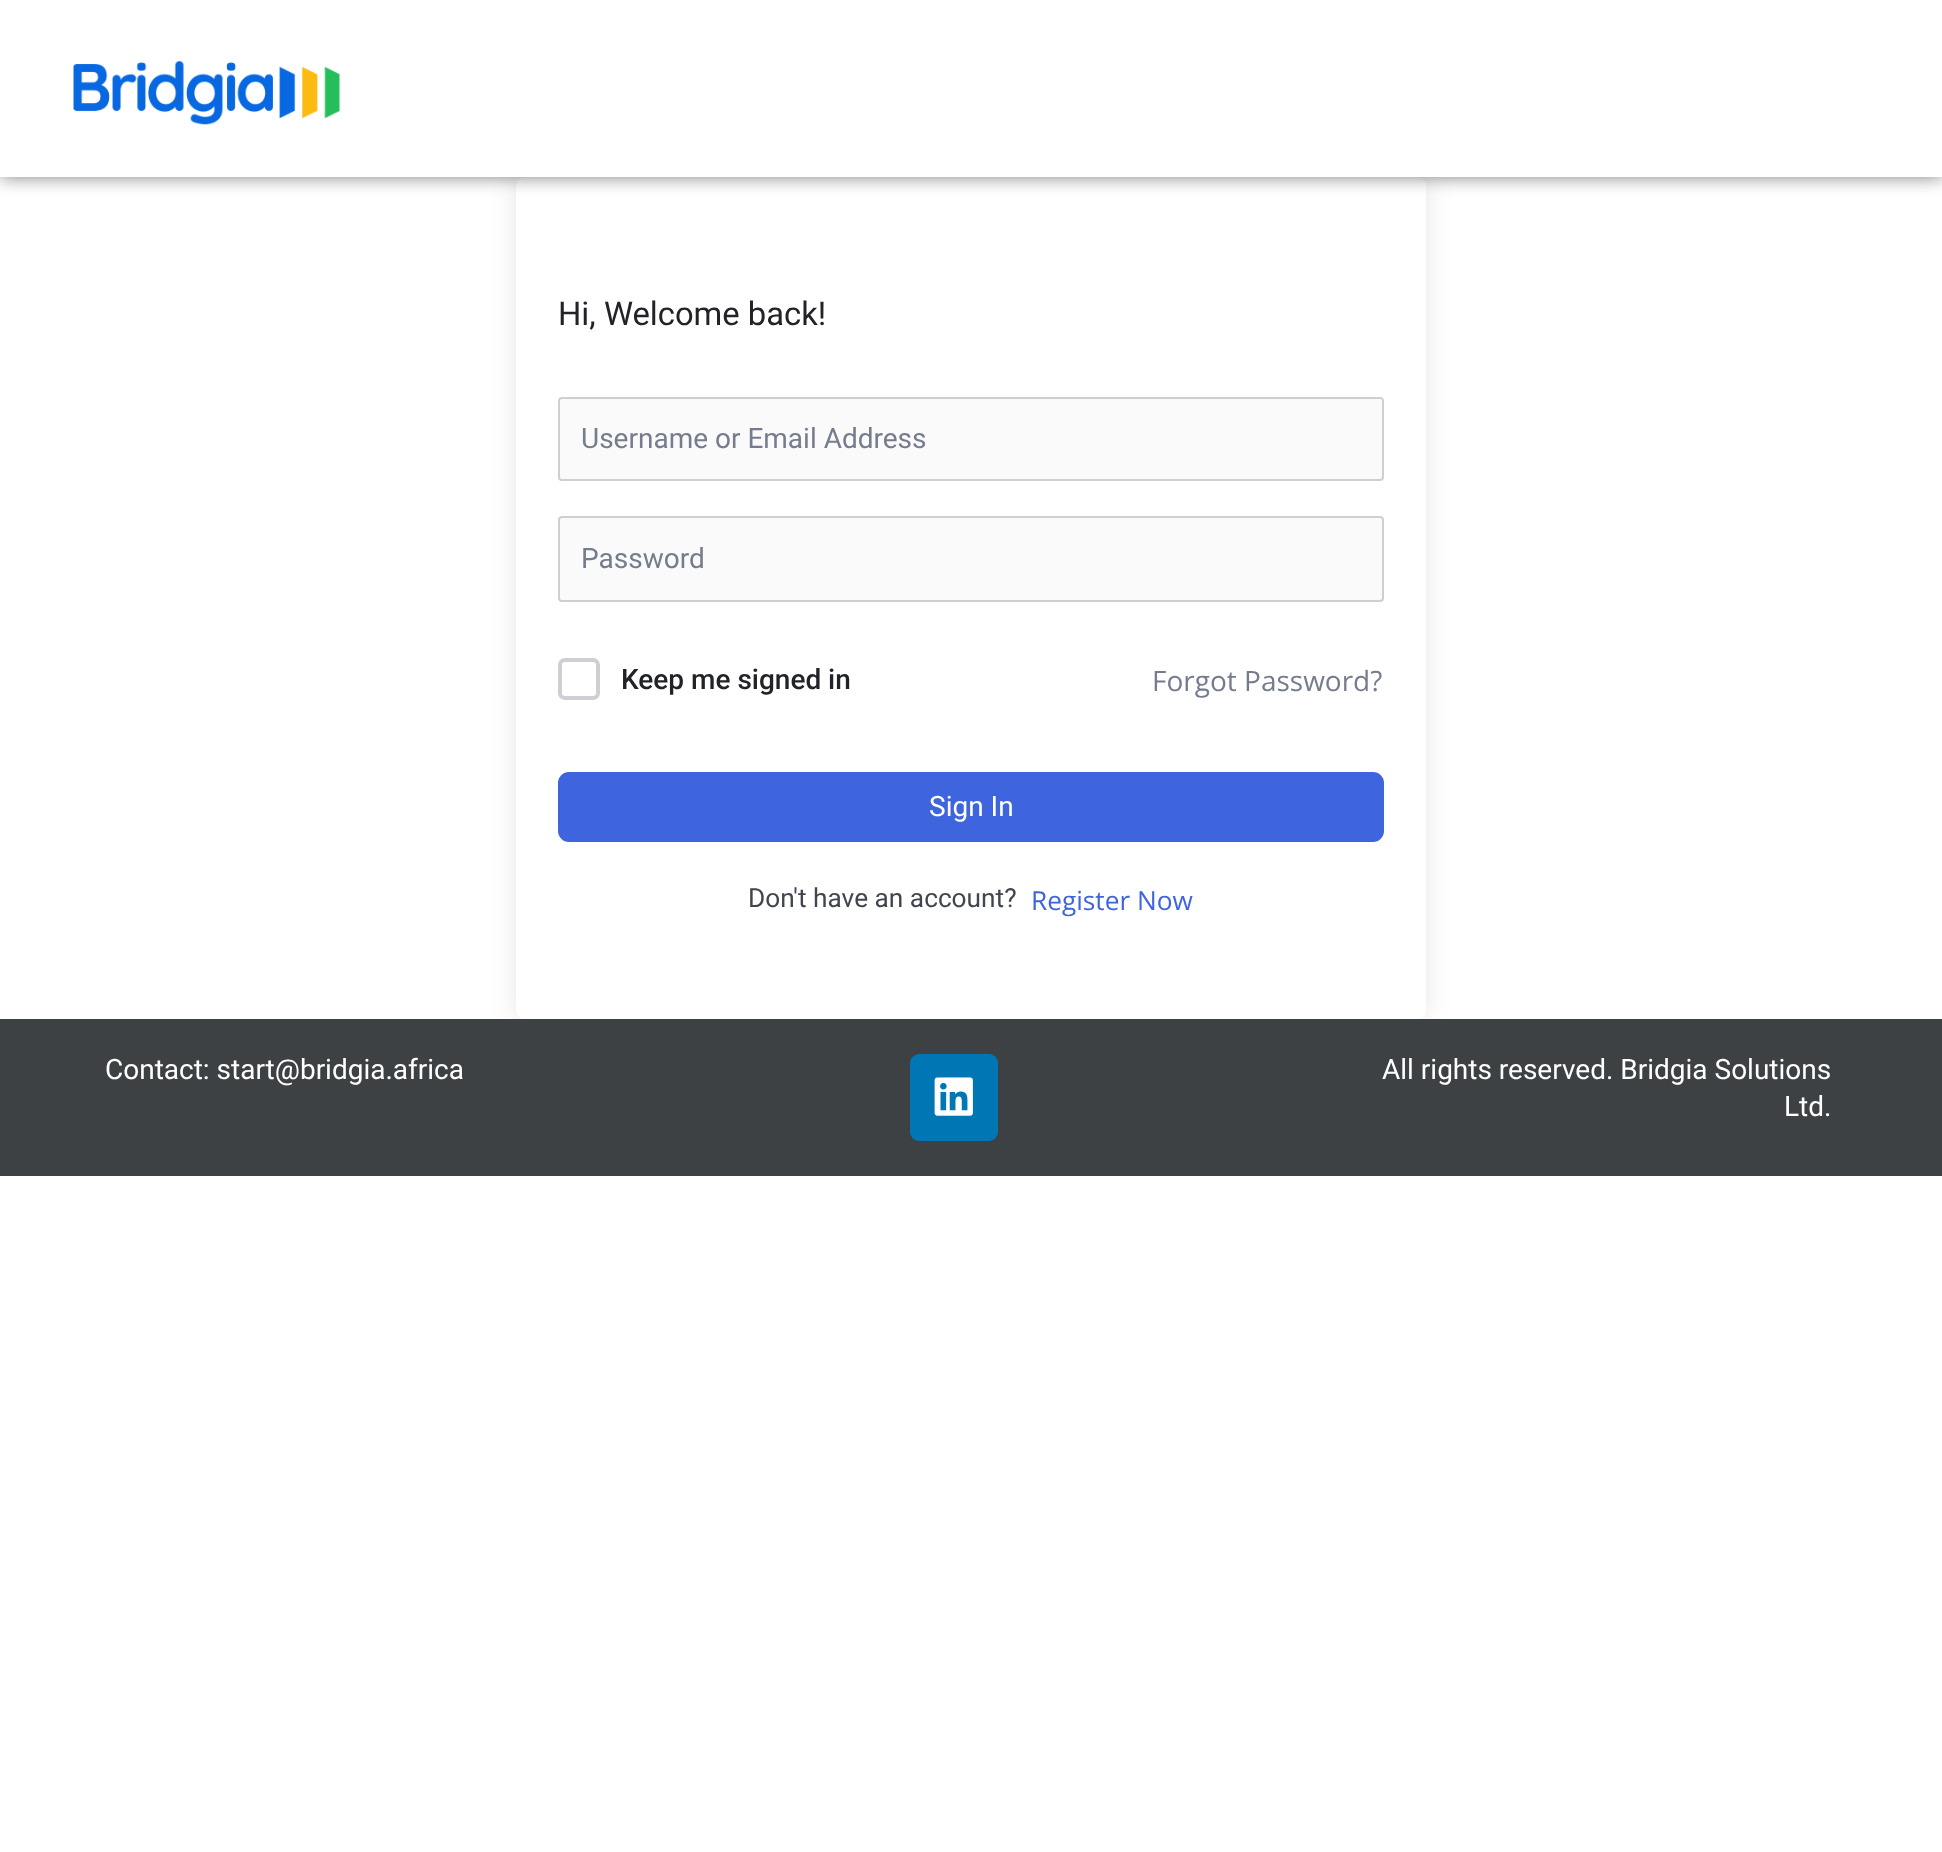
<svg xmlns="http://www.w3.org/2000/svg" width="1942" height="1852">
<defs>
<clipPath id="clip1"><path d="M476 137h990v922h-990zm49 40h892c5 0 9 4 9 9v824c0 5-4 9-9 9h-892c-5 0-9-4-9-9v-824c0-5 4-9 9-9z" clip-rule="evenodd"/></clipPath>
</defs>
<rect width="100%" height="100%" fill="#fff"/>
<rect width="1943" height="177" fill="#00000080" filter="blur(9px)"/>
<g clip-path="url(#clip1)">
<rect x="516" y="177" width="910" height="842" rx="9" fill="#0000001a" filter="blur(13px)"/>
</g>
<rect width="1942" height="177" fill="#fff"/>
<image x="73" y="61" width="267" height="64" href="media/1.png"/>
<text x="558" y="325" style="font-family:Roboto;font-size:32.75px;fill:#212327">Hi, Welcome back!</text>
<rect x="559" y="398" width="824" height="82" rx="3" fill="#fafafa" stroke="#cdcfd5" stroke-width="2"/>
<text x="581" y="448" style="font-family:Roboto;font-size:28px;fill:#757c8e">Username or Email Address</text>
<rect x="559" y="517" width="824" height="84" rx="3" fill="#fafafa" stroke="#cdcfd5" stroke-width="2"/>
<text x="581" y="568" style="font-family:Roboto;font-size:28px;fill:#757c8e">Password</text>
<rect x="560" y="660" width="38" height="38" rx="5" fill="none" stroke="#cdcfd5" stroke-width="4"/>
<text x="621" y="689" style="font-family:Roboto;font-size:28px;font-weight:500;fill:#212327">Keep me signed in</text>
<text x="1152" y="691" style="font-family:Open Sans;font-size:28px;fill:#757c8e">Forgot Password?</text>
<rect x="559" y="773" width="824" height="68" rx="10" fill="#3e64de" stroke="#3e64de" stroke-width="2"/>
<text x="929" y="816" style="font-family:Roboto;font-size:28px;fill:#fff">Sign In</text>
<text x="748" y="907" style="font-family:Roboto;font-size:26.25px;fill:#41454f">Don't have an account?</text>
<text x="1031" y="910" style="font-family:Open Sans;font-size:26.25px;fill:#3e64de">Register Now</text>
<rect y="1019" width="1942" height="157" fill="#3e4144"/>
<text x="105" y="1079" style="font-family:Roboto;font-size:28px;fill:#fff">Contact: start@bridgia.africa</text>
<rect x="910" y="1054" width="88" height="87" rx="9" fill="#0077b5"/>
<image x="934" y="1077" width="39" height="39" href="media/2.png"/>
<text x="1382" y="1079" style="font-family:Roboto;font-size:28px;fill:#fff">All rights reserved. Bridgia Solutions</text>
<text x="1784" y="1116" style="font-family:Roboto;font-size:28px;fill:#fff">Ltd.</text>
</svg>
